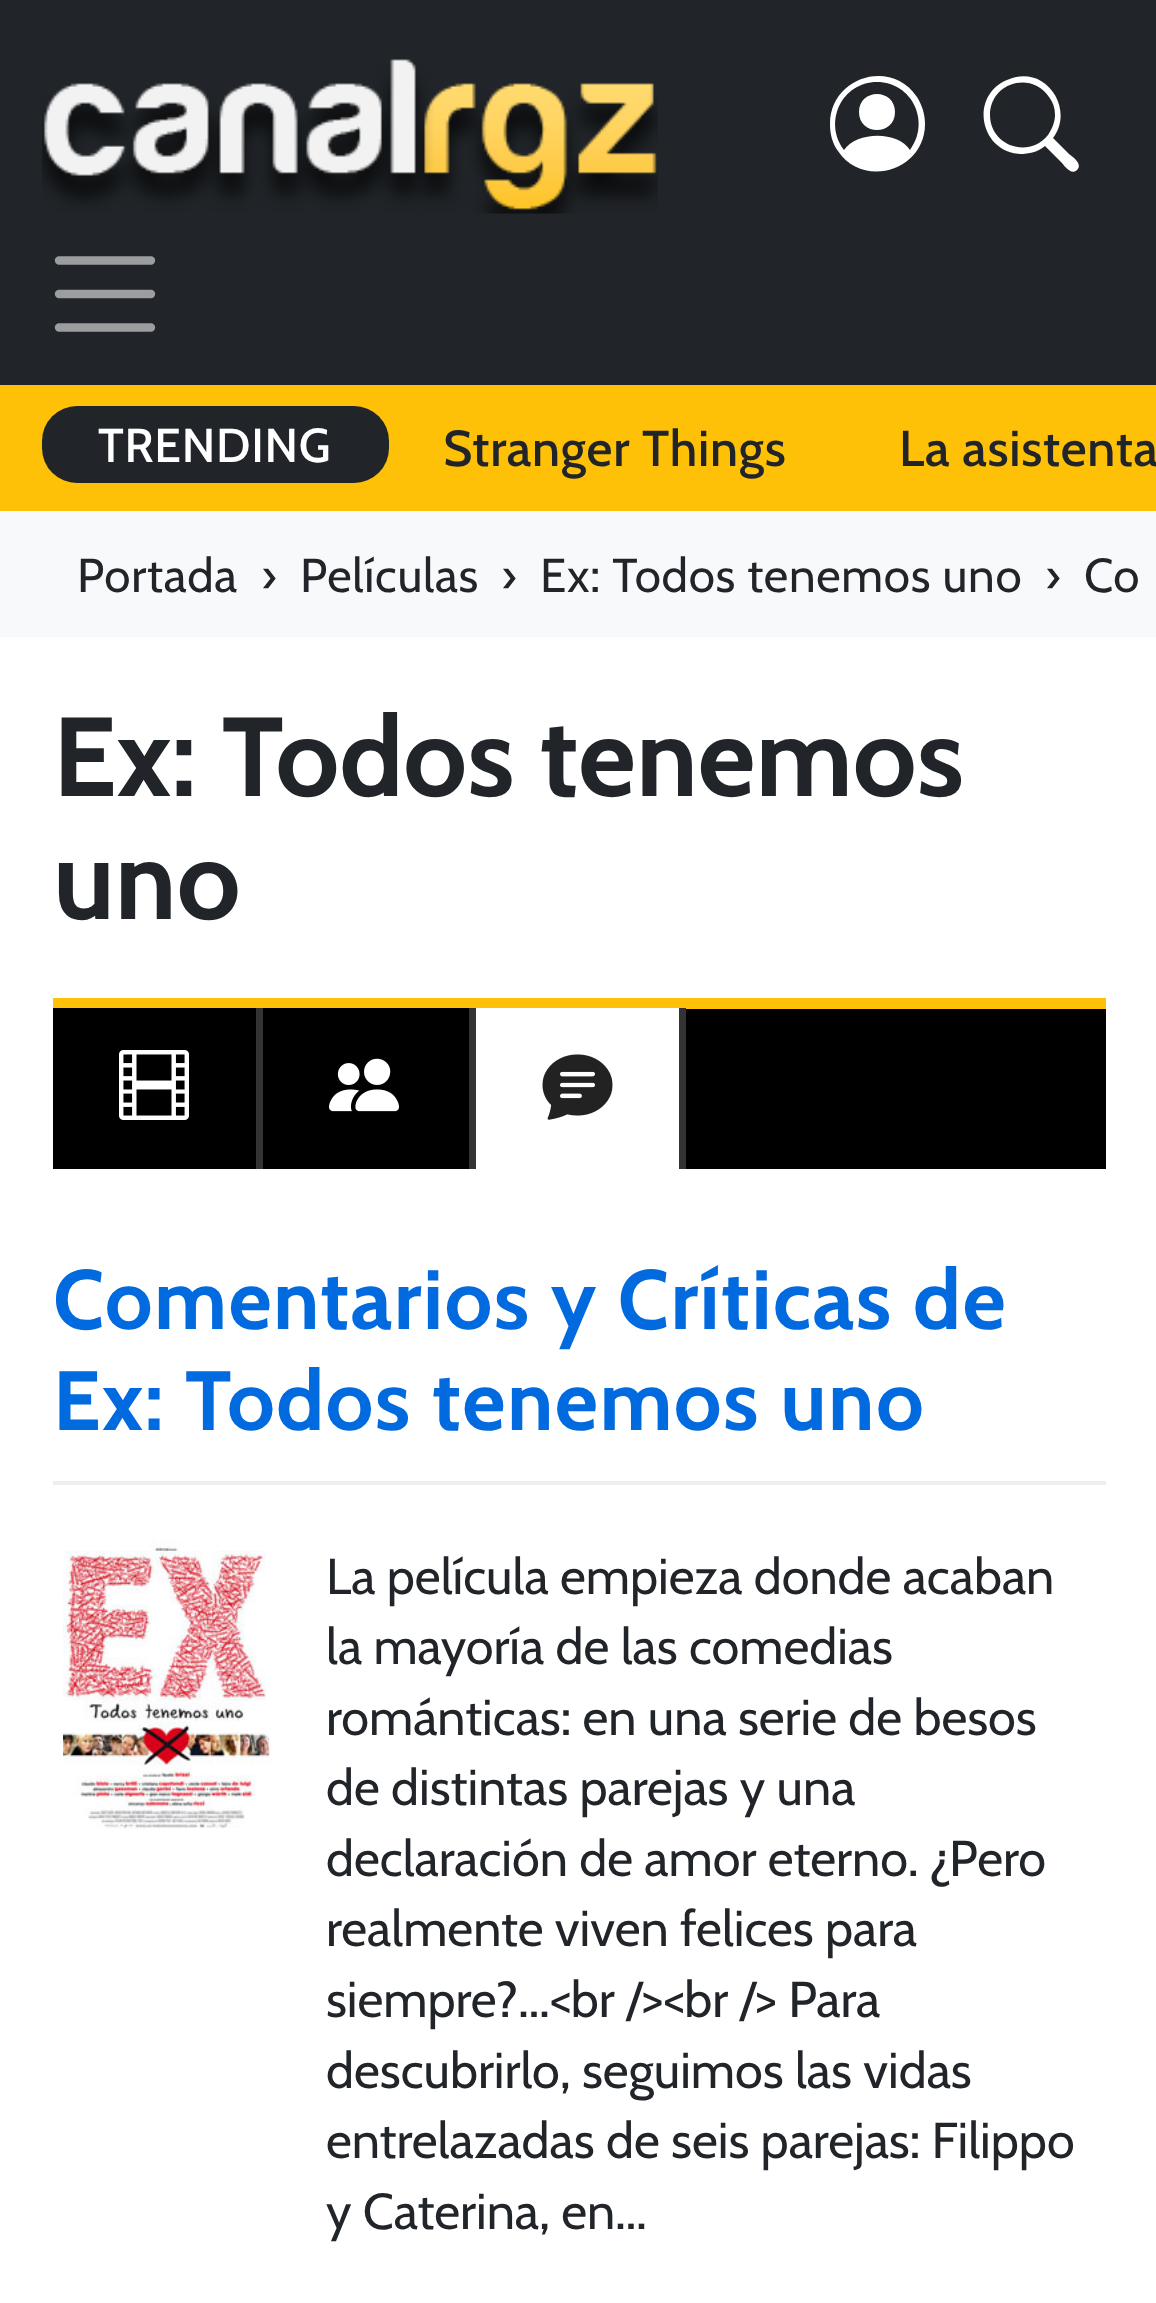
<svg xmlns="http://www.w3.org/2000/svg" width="1156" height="2303">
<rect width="100%" height="100%" fill="#fff"/>
<rect width="1156" height="385" fill="#212529"/>
<image x="42" y="59" width="616" height="155" href="media/1.png"/>
<path d="M895 112c0 24-36 24-36 0c0-24 36-24 36 0zm-65 12c0-47 61-66 87-27c5 8 8 17 8 27c0 47-62 65-87 27c-6-8-8-18-8-27zm47-42c-35 0-54 40-33 68c13-19 54-19 66 0c21-28 2-68-33-68z" fill="#fff"/>
<path d="M1053 138c14-18 8-45-12-57c-10-6-23-6-34-1c-38 16-27 72 13 74c9 0 18-2 25-8l16 16c3 3 10 14 16 8c6-6-4-13-8-16zm2-23c0 7-3 14-7 20c-19 24-58 11-58-20c0-32 41-45 59-18c4 5 6 11 6 18z" fill="#fff"/>
<path d="M59 260.5h92m-92 33.5h92m-92 33.5h92" fill="none" stroke="#9b9d9f" stroke-width="8.4" stroke-linecap="round"/>
<rect y="385" width="1156" height="126" fill="#ffc107"/>
<rect x="42" y="406" width="347" height="77" rx="35" fill="#212529"/>
<text x="98" y="462" style="font-family:Cabin;font-size:47.6px;font-weight:500;letter-spacing:0.7px;fill:#fff">TRENDING</text>
<text x="443" y="466" style="font-family:Cabin;font-size:50.4px;font-weight:500;letter-spacing:0.7px;fill:#212529">Stranger Things</text>
<text x="899" y="466" style="font-family:Cabin;font-size:50.4px;font-weight:500;letter-spacing:0.7px;fill:#212529">La asistenta</text>
<rect y="511" width="1156" height="126" fill="#f8f9fa"/>
<text x="77" y="592" style="font-family:Cabin;font-size:47.6px;letter-spacing:0.7px;fill:#212529">Portada</text>
<text x="261" y="592" style="font-family:Cabin;font-size:47.6px;letter-spacing:0.7px;fill:#212529">›</text>
<text x="300" y="592" style="font-family:Cabin;font-size:47.6px;letter-spacing:0.7px;fill:#212529">Películas</text>
<text x="501" y="592" style="font-family:Cabin;font-size:47.6px;letter-spacing:0.7px;fill:#212529">›</text>
<text x="540" y="592" style="font-family:Cabin;font-size:47.6px;letter-spacing:0.7px;fill:#212529">Ex: Todos tenemos uno</text>
<text x="1045" y="592" style="font-family:Cabin;font-size:47.6px;letter-spacing:0.7px;fill:#212529">›</text>
<text x="1084" y="592" style="font-family:Cabin;font-size:47.6px;letter-spacing:0.7px;fill:#212529">Co</text>
<text x="53" y="796" style="font-family:Cabin;font-size:112px;font-weight:bold;fill:#212529">Ex: Todos tenemos</text>
<text x="53" y="919" style="font-family:Cabin;font-size:112px;font-weight:bold;fill:#212529">uno</text>
<rect x="686" y="1009" width="420" height="160" fill="#000"/>
<rect x="53" y="998" width="1053" height="11" fill="#ffc107"/>
<rect x="256" y="1008" width="7" height="161" fill="#333"/>
<rect x="53" y="1008" width="203" height="161" fill="#000"/>
<image x="119" y="1050" width="70" height="70" href="media/2.png"/>
<rect x="469" y="1008" width="7" height="161" fill="#333"/>
<rect x="263" y="1008" width="206" height="161" fill="#000"/>
<image x="329" y="1058" width="70" height="54" href="media/3.png"/>
<rect x="679" y="1008" width="7" height="161" fill="#333"/>
<rect x="476" y="1008" width="203" height="1" fill="#fff"/>
<image x="542" y="1054" width="71" height="66" href="media/4.png"/>
<rect x="53" y="1481" width="1053" height="4" fill="#eee"/>
<text x="53" y="1329" style="font-family:Cabin;font-size:84px;font-weight:bold;letter-spacing:1.4px;fill:#006ade">Comentarios y Críticas de</text>
<text x="53" y="1430" style="font-family:Cabin;font-size:84px;font-weight:bold;letter-spacing:1.4px;fill:#006ade">Ex: Todos tenemos uno</text>
<image x="63" y="1540" width="207" height="289" href="media/5.png"/>
<text x="326" y="1594" style="font-family:Cabin;font-size:50.4px;fill:#212529">La película empieza donde acaban</text>
<text x="326" y="1664" style="font-family:Cabin;font-size:50.4px;fill:#212529">la mayoría de las comedias</text>
<text x="326" y="1735" style="font-family:Cabin;font-size:50.4px;fill:#212529">románticas: en una serie de besos</text>
<text x="326" y="1805" style="font-family:Cabin;font-size:50.4px;fill:#212529">de distintas parejas y una</text>
<text x="326" y="1876" style="font-family:Cabin;font-size:50.4px;fill:#212529">declaración de amor eterno. ¿Pero</text>
<text x="326" y="1946" style="font-family:Cabin;font-size:50.4px;fill:#212529">realmente viven felices para</text>
<text x="326" y="2017" style="font-family:Cabin;font-size:50.4px;fill:#212529">siempre?...&lt;br /&gt;&lt;br /&gt; Para</text>
<text x="326" y="2088" style="font-family:Cabin;font-size:50.4px;fill:#212529">descubrirlo, seguimos las vidas</text>
<text x="326" y="2158" style="font-family:Cabin;font-size:50.4px;fill:#212529">entrelazadas de seis parejas: Filippo</text>
<text x="326" y="2229" style="font-family:Cabin;font-size:50.4px;fill:#212529">y Caterina, en...</text>
</svg>
